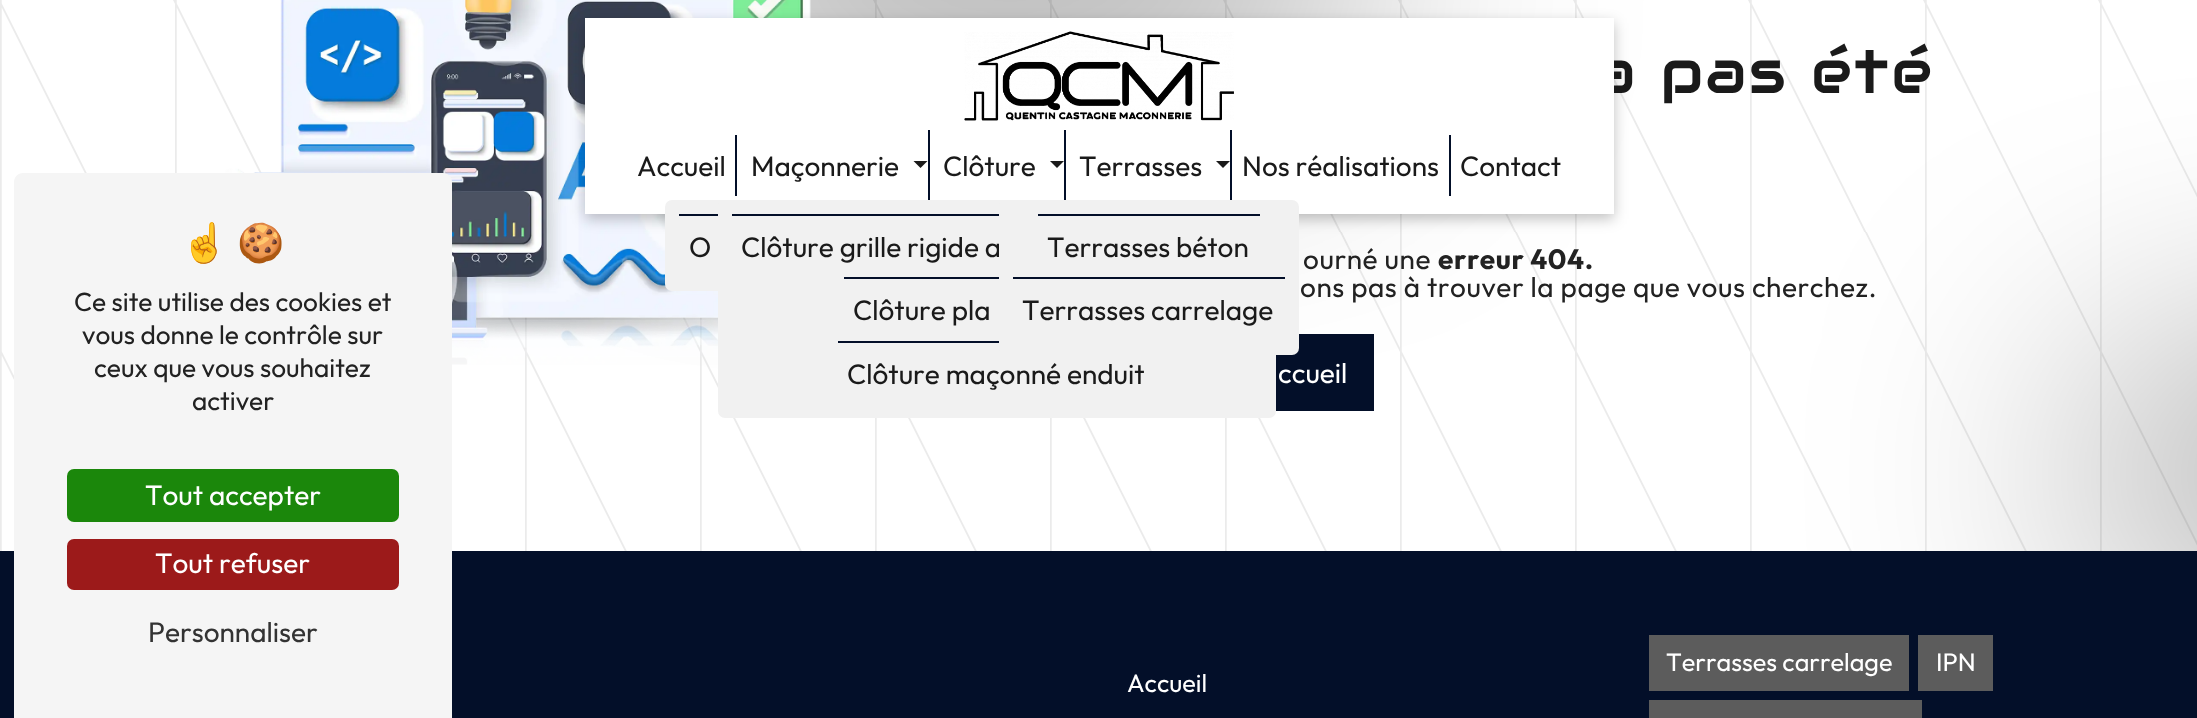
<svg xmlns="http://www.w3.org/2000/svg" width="2197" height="718">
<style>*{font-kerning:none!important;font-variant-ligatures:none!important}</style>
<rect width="100%" height="100%" fill="#fff"/>
<image x="0" y="0" width="2197" height="551" href="media/1.png"/>
<rect x="660" y="-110" width="700" height="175" rx="87.5" fill="#00000080" filter="blur(140px)"/>
<image x="223" y="0" width="588" height="365" href="media/3.png"/>
<rect x="2088" y="387" width="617" height="175" rx="87.5" fill="#00000080" filter="blur(140px)"/>
<rect y="551" width="2197" height="167" fill="#030f29"/>
<path d="M23 173h420c5 0 9 4 9 9v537h-438v-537c0-5 4-9 9-9z" fill="#f5f5f5"/>
<text x="181" y="256" style="font-family:Noto Color Emoji;font-size:38px;fill:#222">☝</text>
<text x="237" y="256" style="font-family:Noto Color Emoji;font-size:38px;fill:#222">🍪</text>
<text x="74" y="311" style="font-family:Outfit;font-size:26.25px;fill:#222">Ce site utilise des cookies et</text>
<text x="82" y="344" style="font-family:Outfit;font-size:26.25px;fill:#222">vous donne le contrôle sur</text>
<text x="94" y="377" style="font-family:Outfit;font-size:26.25px;fill:#222">ceux que vous souhaitez</text>
<text x="192" y="410" style="font-family:Outfit;font-size:26.25px;fill:#222">activer</text>
<rect x="67" y="469" width="332" height="53" rx="7" fill="#1b870b"/>
<text x="145" y="505" style="font-family:Outfit;font-size:28px;fill:#fff">Tout accepter</text>
<rect x="67" y="539" width="332" height="51" rx="7" fill="#9c1a1a"/>
<text x="155" y="573" style="font-family:Outfit;font-size:28px;fill:#fff">Tout refuser</text>
<text x="148" y="642" style="font-family:Outfit;font-size:28px;fill:#333">Personnaliser</text>
<rect x="585" y="23" width="1029" height="196" fill="#0000003d" filter="blur(7px)"/>
<text x="1595" y="93" style="font-family:Audiowide;font-size:61.5px;letter-spacing:2.75px;fill:#1a1a1a">a pas été</text>
<rect x="585" y="18" width="1029" height="196" fill="#fff"/>
<image x="964" y="31" width="270" height="90" href="media/2.png"/>
<rect x="735" y="135" width="2" height="61" fill="#030f29"/>
<text x="637" y="176" style="font-family:Outfit;font-size:28px;fill:#1a1a1a">Accueil</text>
<rect x="1064" y="130" width="2" height="70" fill="#030f29"/>
<text x="943" y="176" style="font-family:Outfit;font-size:28px;fill:#1a1a1a">Clôture</text>
<path d="M1050 161h14l-7 7z" fill="#1a1a1a"/>
<rect x="665" y="200" width="334" height="91" rx="7" fill="#f1f1f1"/>
<rect x="718" y="200" width="558" height="218" rx="7" fill="#f1f1f1"/>
<rect x="732" y="214" width="267" height="2" fill="#030f29"/>
<text x="741" y="257" style="font-family:Outfit;font-size:28px;fill:#1a1a1a">Clôture grille rigide a</text>
<rect x="844" y="277" width="155" height="2" fill="#030f29"/>
<text x="853" y="320" style="font-family:Outfit;font-size:28px;fill:#1a1a1a">Clôture pla</text>
<rect x="838" y="341" width="161" height="2" fill="#030f29"/>
<text x="847" y="384" style="font-family:Outfit;font-size:28px;fill:#1a1a1a">Clôture maçonné enduit</text>
<rect x="1449" y="135" width="2" height="61" fill="#030f29"/>
<text x="1242" y="176" style="font-family:Outfit;font-size:28px;fill:#1a1a1a">Nos réalisations</text>
<rect x="928" y="130" width="2" height="70" fill="#030f29"/>
<text x="751" y="176" style="font-family:Outfit;font-size:28px;fill:#1a1a1a">Maçonnerie</text>
<path d="M913.5 161h14l-7 7z" fill="#1a1a1a"/>
<rect x="679" y="214" width="39" height="2" fill="#030f29"/>
<text x="689" y="257" style="font-family:Outfit;font-size:28px;fill:#1a1a1a">O</text>
<rect x="1230" y="130" width="2" height="70" fill="#030f29"/>
<text x="1079" y="176" style="font-family:Outfit;font-size:28px;fill:#1a1a1a">Terrasses</text>
<path d="M1216 161h14l-7 7z" fill="#1a1a1a"/>
<rect x="1276" y="334" width="98" height="77" fill="#030f29"/>
<rect x="999" y="200" width="300" height="155" rx="7" fill="#f1f1f1"/>
<rect x="1038" y="214" width="222" height="2" fill="#030f29"/>
<text x="1047" y="257" style="font-family:Outfit;font-size:28px;fill:#1a1a1a">Terrasses</text>
<text x="1176" y="257" style="font-family:Outfit;font-size:28px;fill:#1a1a1a">béton</text>
<rect x="1013" y="277" width="272" height="2" fill="#030f29"/>
<text x="1022" y="320" style="font-family:Outfit;font-size:28px;fill:#1a1a1a">Terrasses</text>
<text x="1151" y="320" style="font-family:Outfit;font-size:28px;fill:#1a1a1a">carrelage</text>
<text x="1460" y="176" style="font-family:Outfit;font-size:28px;fill:#1a1a1a">Contact</text>
<text x="1303" y="269" style="font-family:Outfit;font-size:28px;letter-spacing:0.55px;fill:#222">ourné une</text>
<text x="1438" y="269" style="font-family:Outfit;font-size:28px;font-weight:bold;letter-spacing:0.55px;fill:#222">erreur 404.</text>
<text x="1300" y="297" style="font-family:Outfit;font-size:28px;letter-spacing:0.55px;fill:#222">ons pas à trouver la page que vous cherchez.</text>
<text x="1278" y="383" style="font-family:Outfit;font-size:28px;fill:#fff">ccueil</text>
<rect x="1649" y="635" width="260" height="56" fill="#5c5c5c"/>
<text x="1666" y="671" style="font-family:Outfit;font-size:25.25px;fill:#fff">Terrasses carrelage</text>
<rect x="1918" y="635" width="75" height="56" fill="#5c5c5c"/>
<text x="1936" y="671" style="font-family:Outfit;font-size:25.25px;fill:#fff">IPN</text>
<rect x="1649" y="700" width="273" height="18" fill="#5c5c5c"/>
<text x="1127" y="692" style="font-family:Outfit;font-size:25.25px;fill:#fff">Accueil</text>
</svg>
